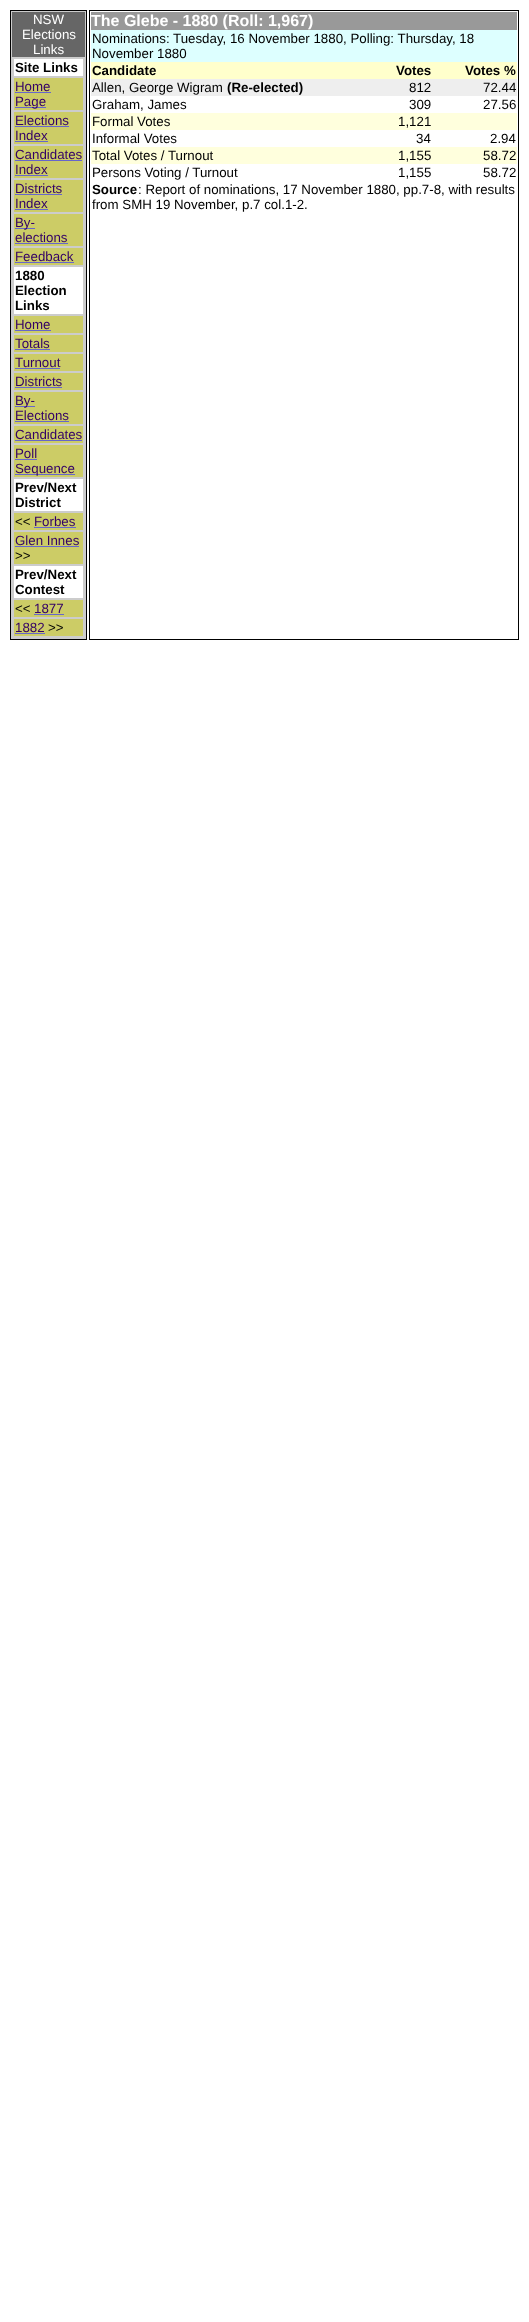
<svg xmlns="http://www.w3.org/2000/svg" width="529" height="2322">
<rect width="100%" height="100%" fill="#fff"/>
<rect x="10.5" y="10.5" width="76" height="629" fill="#ccc" stroke="#000"/>
<rect x="12" y="12" width="73" height="45" fill="#666"/>
<text x="33" y="24" style="font-family:Liberation Sans;font-size:13.3px;fill:#fff">NSW</text>
<text x="22" y="39" style="font-family:Liberation Sans;font-size:13.3px;fill:#fff">Elections</text>
<text x="33" y="54" style="font-family:Liberation Sans;font-size:13.3px;fill:#fff">Links</text>
<rect x="14" y="59" width="69" height="17" fill="#fff"/>
<text x="15" y="72" style="font-family:Liberation Sans;font-size:13.3px;font-weight:bold;fill:#000">Site Links</text>
<rect x="14" y="78" width="69" height="32" fill="#cc6"/>
<text x="15" y="91" style="font-family:Liberation Sans;font-size:13.3px;fill:#306">Home</text>
<rect x="15" y="92" width="36" height="1" fill="#66c"/>
<rect x="15" y="107" width="31" height="1" fill="#66c"/>
<text x="15" y="106" style="font-family:Liberation Sans;font-size:13.3px;fill:#306">Page</text>
<rect x="14" y="112" width="69" height="32" fill="#cc6"/>
<text x="15" y="125" style="font-family:Liberation Sans;font-size:13.3px;fill:#306">Elections</text>
<rect x="15" y="126" width="54" height="1" fill="#66c"/>
<text x="15" y="140" style="font-family:Liberation Sans;font-size:13.3px;fill:#306">Index</text>
<rect x="15" y="141" width="33" height="1" fill="#66c"/>
<rect x="14" y="146" width="69" height="32" fill="#cc6"/>
<text x="15" y="159" style="font-family:Liberation Sans;font-size:13.3px;fill:#306">Candidates</text>
<rect x="15" y="160" width="67" height="1" fill="#66c"/>
<text x="15" y="174" style="font-family:Liberation Sans;font-size:13.3px;fill:#306">Index</text>
<rect x="15" y="175" width="33" height="1" fill="#66c"/>
<rect x="14" y="180" width="69" height="32" fill="#cc6"/>
<text x="15" y="193" style="font-family:Liberation Sans;font-size:13.3px;fill:#306">Districts</text>
<rect x="15" y="194" width="47" height="1" fill="#66c"/>
<text x="15" y="208" style="font-family:Liberation Sans;font-size:13.3px;fill:#306">Index</text>
<rect x="15" y="209" width="33" height="1" fill="#66c"/>
<rect x="14" y="214" width="69" height="32" fill="#cc6"/>
<rect x="15" y="228" width="20" height="1" fill="#66c"/>
<text x="15" y="227" style="font-family:Liberation Sans;font-size:13.3px;fill:#306">By-</text>
<text x="15" y="242" style="font-family:Liberation Sans;font-size:13.3px;fill:#306">elections</text>
<rect x="15" y="243" width="53" height="1" fill="#66c"/>
<rect x="14" y="248" width="69" height="17" fill="#cc6"/>
<text x="15" y="261" style="font-family:Liberation Sans;font-size:13.3px;fill:#306">Feedback</text>
<rect x="15" y="262" width="59" height="1" fill="#66c"/>
<rect x="14" y="267" width="69" height="47" fill="#fff"/>
<text x="15" y="280" style="font-family:Liberation Sans;font-size:13.3px;font-weight:bold;fill:#000">1880</text>
<text x="15" y="295" style="font-family:Liberation Sans;font-size:13.3px;font-weight:bold;fill:#000">Election</text>
<text x="15" y="310" style="font-family:Liberation Sans;font-size:13.3px;font-weight:bold;fill:#000">Links</text>
<rect x="14" y="316" width="69" height="17" fill="#cc6"/>
<text x="15" y="329" style="font-family:Liberation Sans;font-size:13.3px;fill:#306">Home</text>
<rect x="15" y="330" width="36" height="1" fill="#66c"/>
<rect x="14" y="335" width="69" height="17" fill="#cc6"/>
<text x="15" y="348" style="font-family:Liberation Sans;font-size:13.3px;fill:#306">Totals</text>
<rect x="15" y="349" width="35" height="1" fill="#66c"/>
<rect x="14" y="354" width="69" height="17" fill="#cc6"/>
<text x="15" y="367" style="font-family:Liberation Sans;font-size:13.3px;fill:#306">Turnout</text>
<rect x="15" y="368" width="45" height="1" fill="#66c"/>
<rect x="14" y="373" width="69" height="17" fill="#cc6"/>
<text x="15" y="386" style="font-family:Liberation Sans;font-size:13.3px;fill:#306">Districts</text>
<rect x="15" y="387" width="47" height="1" fill="#66c"/>
<rect x="14" y="392" width="69" height="32" fill="#cc6"/>
<rect x="15" y="406" width="20" height="1" fill="#66c"/>
<text x="15" y="405" style="font-family:Liberation Sans;font-size:13.3px;fill:#306">By-</text>
<text x="15" y="420" style="font-family:Liberation Sans;font-size:13.3px;fill:#306">Elections</text>
<rect x="15" y="421" width="54" height="1" fill="#66c"/>
<rect x="14" y="426" width="69" height="17" fill="#cc6"/>
<text x="15" y="439" style="font-family:Liberation Sans;font-size:13.3px;fill:#306">Candidates</text>
<rect x="15" y="440" width="67" height="1" fill="#66c"/>
<rect x="14" y="445" width="69" height="32" fill="#cc6"/>
<text x="15" y="458" style="font-family:Liberation Sans;font-size:13.3px;fill:#306">Poll</text>
<rect x="15" y="459" width="22" height="1" fill="#66c"/>
<rect x="15" y="474" width="60" height="1" fill="#66c"/>
<text x="15" y="473" style="font-family:Liberation Sans;font-size:13.3px;fill:#306">Sequence</text>
<rect x="14" y="479" width="69" height="32" fill="#fff"/>
<text x="15" y="492" style="font-family:Liberation Sans;font-size:13.3px;font-weight:bold;fill:#000">Prev/Next</text>
<text x="15" y="507" style="font-family:Liberation Sans;font-size:13.3px;font-weight:bold;fill:#000">District</text>
<rect x="14" y="513" width="69" height="17" fill="#cc6"/>
<text x="15" y="526" style="font-family:Liberation Sans;font-size:13.3px;fill:#000">&lt;&lt;</text>
<text x="34" y="526" style="font-family:Liberation Sans;font-size:13.3px;fill:#306">Forbes</text>
<rect x="34" y="527" width="42" height="1" fill="#66c"/>
<rect x="14" y="532" width="69" height="32" fill="#cc6"/>
<text x="15" y="545" style="font-family:Liberation Sans;font-size:13.3px;fill:#306">Glen Innes</text>
<rect x="15" y="546" width="64" height="1" fill="#66c"/>
<text x="15" y="560" style="font-family:Liberation Sans;font-size:13.3px;fill:#000">&gt;&gt;</text>
<rect x="14" y="566" width="69" height="32" fill="#fff"/>
<text x="15" y="579" style="font-family:Liberation Sans;font-size:13.3px;font-weight:bold;fill:#000">Prev/Next</text>
<text x="15" y="594" style="font-family:Liberation Sans;font-size:13.3px;font-weight:bold;fill:#000">Contest</text>
<rect x="14" y="600" width="69" height="17" fill="#cc6"/>
<text x="15" y="613" style="font-family:Liberation Sans;font-size:13.3px;fill:#000">&lt;&lt;</text>
<text x="34" y="613" style="font-family:Liberation Sans;font-size:13.3px;fill:#306">1877</text>
<rect x="34" y="614" width="30" height="1" fill="#66c"/>
<rect x="14" y="619" width="69" height="17" fill="#cc6"/>
<text x="15" y="632" style="font-family:Liberation Sans;font-size:13.3px;fill:#306">1882</text>
<rect x="15" y="633" width="30" height="1" fill="#66c"/>
<text x="48" y="632" style="font-family:Liberation Sans;font-size:13.3px;fill:#000">&gt;&gt;</text>
<rect x="89.5" y="10.5" width="429" height="629" fill="none" stroke="#000"/>
<rect x="91" y="12" width="426" height="18" fill="#999"/>
<text x="91" y="26" style="font-family:Liberation Sans;font-size:16px;font-weight:bold;fill:#fff">The Glebe - 1880 (Roll: 1,967)</text>
<rect x="91" y="30" width="426" height="32" fill="#dff"/>
<text x="92" y="43" style="font-family:Liberation Sans;font-size:13.3px;fill:#000">Nominations: Tuesday, 16 November 1880, Polling: Thursday, 18</text>
<text x="92" y="58" style="font-family:Liberation Sans;font-size:13.3px;fill:#000">November 1880</text>
<rect x="91" y="62" width="426" height="17" fill="#ffc"/>
<text x="92" y="75" style="font-family:Liberation Sans;font-size:13.3px;font-weight:bold;fill:#000">Candidate</text>
<text x="396" y="75" style="font-family:Liberation Sans;font-size:13.3px;font-weight:bold;fill:#000">Votes</text>
<text x="465" y="75" style="font-family:Liberation Sans;font-size:13.3px;font-weight:bold;fill:#000">Votes %</text>
<rect x="91" y="79" width="426" height="17" fill="#eee"/>
<text x="92" y="92" style="font-family:Liberation Sans;font-size:13.3px;fill:#000">Allen, George Wigram</text>
<text x="227" y="92" style="font-family:Liberation Sans;font-size:13.3px;font-weight:bold;fill:#000">(Re-elected)</text>
<text x="409" y="92" style="font-family:Liberation Sans;font-size:13.3px;fill:#000">812</text>
<text x="483" y="92" style="font-family:Liberation Sans;font-size:13.3px;fill:#000">72.44</text>
<text x="92" y="109" style="font-family:Liberation Sans;font-size:13.3px;fill:#000">Graham, James</text>
<text x="409" y="109" style="font-family:Liberation Sans;font-size:13.3px;fill:#000">309</text>
<text x="483" y="109" style="font-family:Liberation Sans;font-size:13.3px;fill:#000">27.56</text>
<rect x="91" y="113" width="426" height="17" fill="#ffd"/>
<text x="92" y="126" style="font-family:Liberation Sans;font-size:13.3px;fill:#000">Formal Votes</text>
<text x="398" y="126" style="font-family:Liberation Sans;font-size:13.3px;fill:#000">1,121</text>
<text x="92" y="143" style="font-family:Liberation Sans;font-size:13.3px;fill:#000">Informal Votes</text>
<text x="416" y="143" style="font-family:Liberation Sans;font-size:13.3px;fill:#000">34</text>
<text x="490" y="143" style="font-family:Liberation Sans;font-size:13.3px;fill:#000">2.94</text>
<rect x="91" y="147" width="426" height="17" fill="#ffd"/>
<text x="92" y="160" style="font-family:Liberation Sans;font-size:13.3px;fill:#000">Total Votes / Turnout</text>
<text x="398" y="160" style="font-family:Liberation Sans;font-size:13.3px;fill:#000">1,155</text>
<text x="483" y="160" style="font-family:Liberation Sans;font-size:13.3px;fill:#000">58.72</text>
<text x="92" y="177" style="font-family:Liberation Sans;font-size:13.3px;fill:#000">Persons Voting / Turnout</text>
<text x="398" y="177" style="font-family:Liberation Sans;font-size:13.3px;fill:#000">1,155</text>
<text x="483" y="177" style="font-family:Liberation Sans;font-size:13.3px;fill:#000">58.72</text>
<text x="92" y="194" style="font-family:Liberation Sans;font-size:13.3px;font-weight:bold;fill:#000">Source</text>
<text x="138" y="194" style="font-family:Liberation Sans;font-size:13.3px;fill:#000">: Report of nominations, 17 November 1880, pp.7-8, with results</text>
<text x="92" y="209" style="font-family:Liberation Sans;font-size:13.3px;fill:#000">from SMH 19 November, p.7 col.1-2.</text>
</svg>
